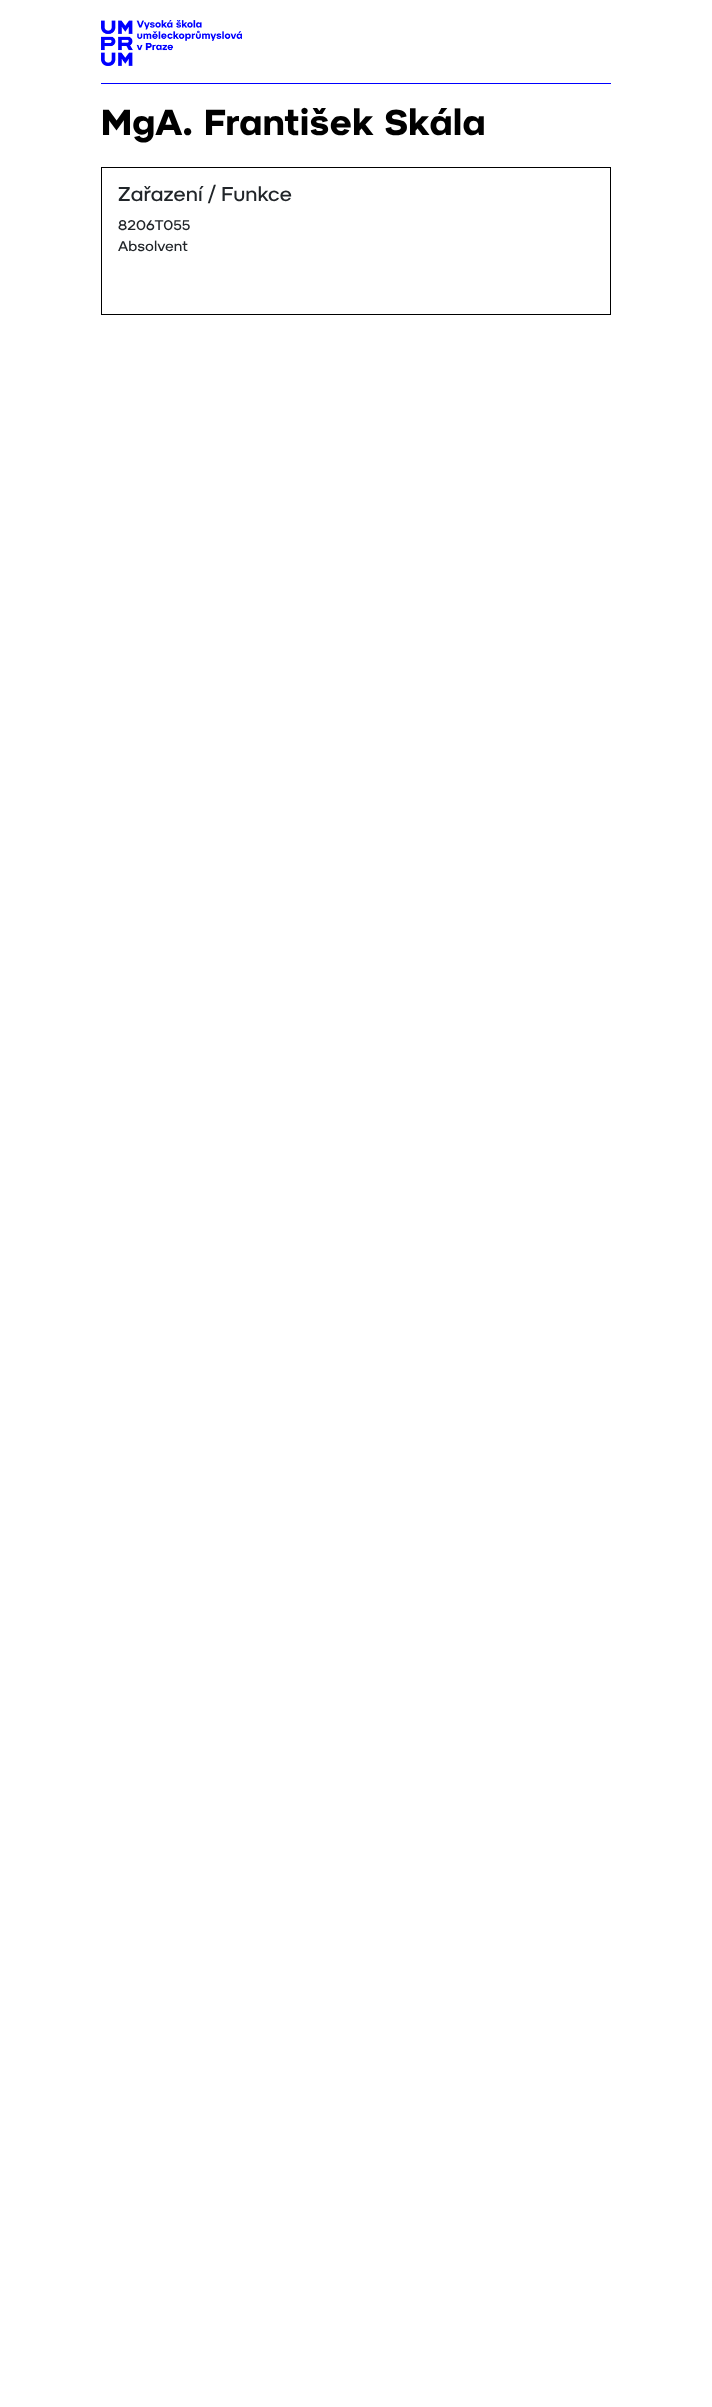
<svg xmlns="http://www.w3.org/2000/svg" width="712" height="2407">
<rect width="100%" height="100%" fill="#fff"/>
<image x="101" y="20" width="141" height="46" href="media/1.png"/>
<rect x="101" y="83" width="510" height="1" fill="#00f"/>
<text x="101" y="135" style="font-family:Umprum;font-size:36px;font-weight:bold;fill:#000">MgA. František Skála</text>
<rect x="101.5" y="167.5" width="509" height="147" fill="none" stroke="#000"/>
<text x="118" y="201" style="font-family:Umprum;font-size:20px;fill:#212529">Zařazení / Funkce</text>
<text x="118" y="230" style="font-family:Umprum;font-size:14px;fill:#212529">8206T055</text>
<text x="118" y="251" style="font-family:Umprum;font-size:14px;fill:#212529">Absolvent</text>
</svg>
